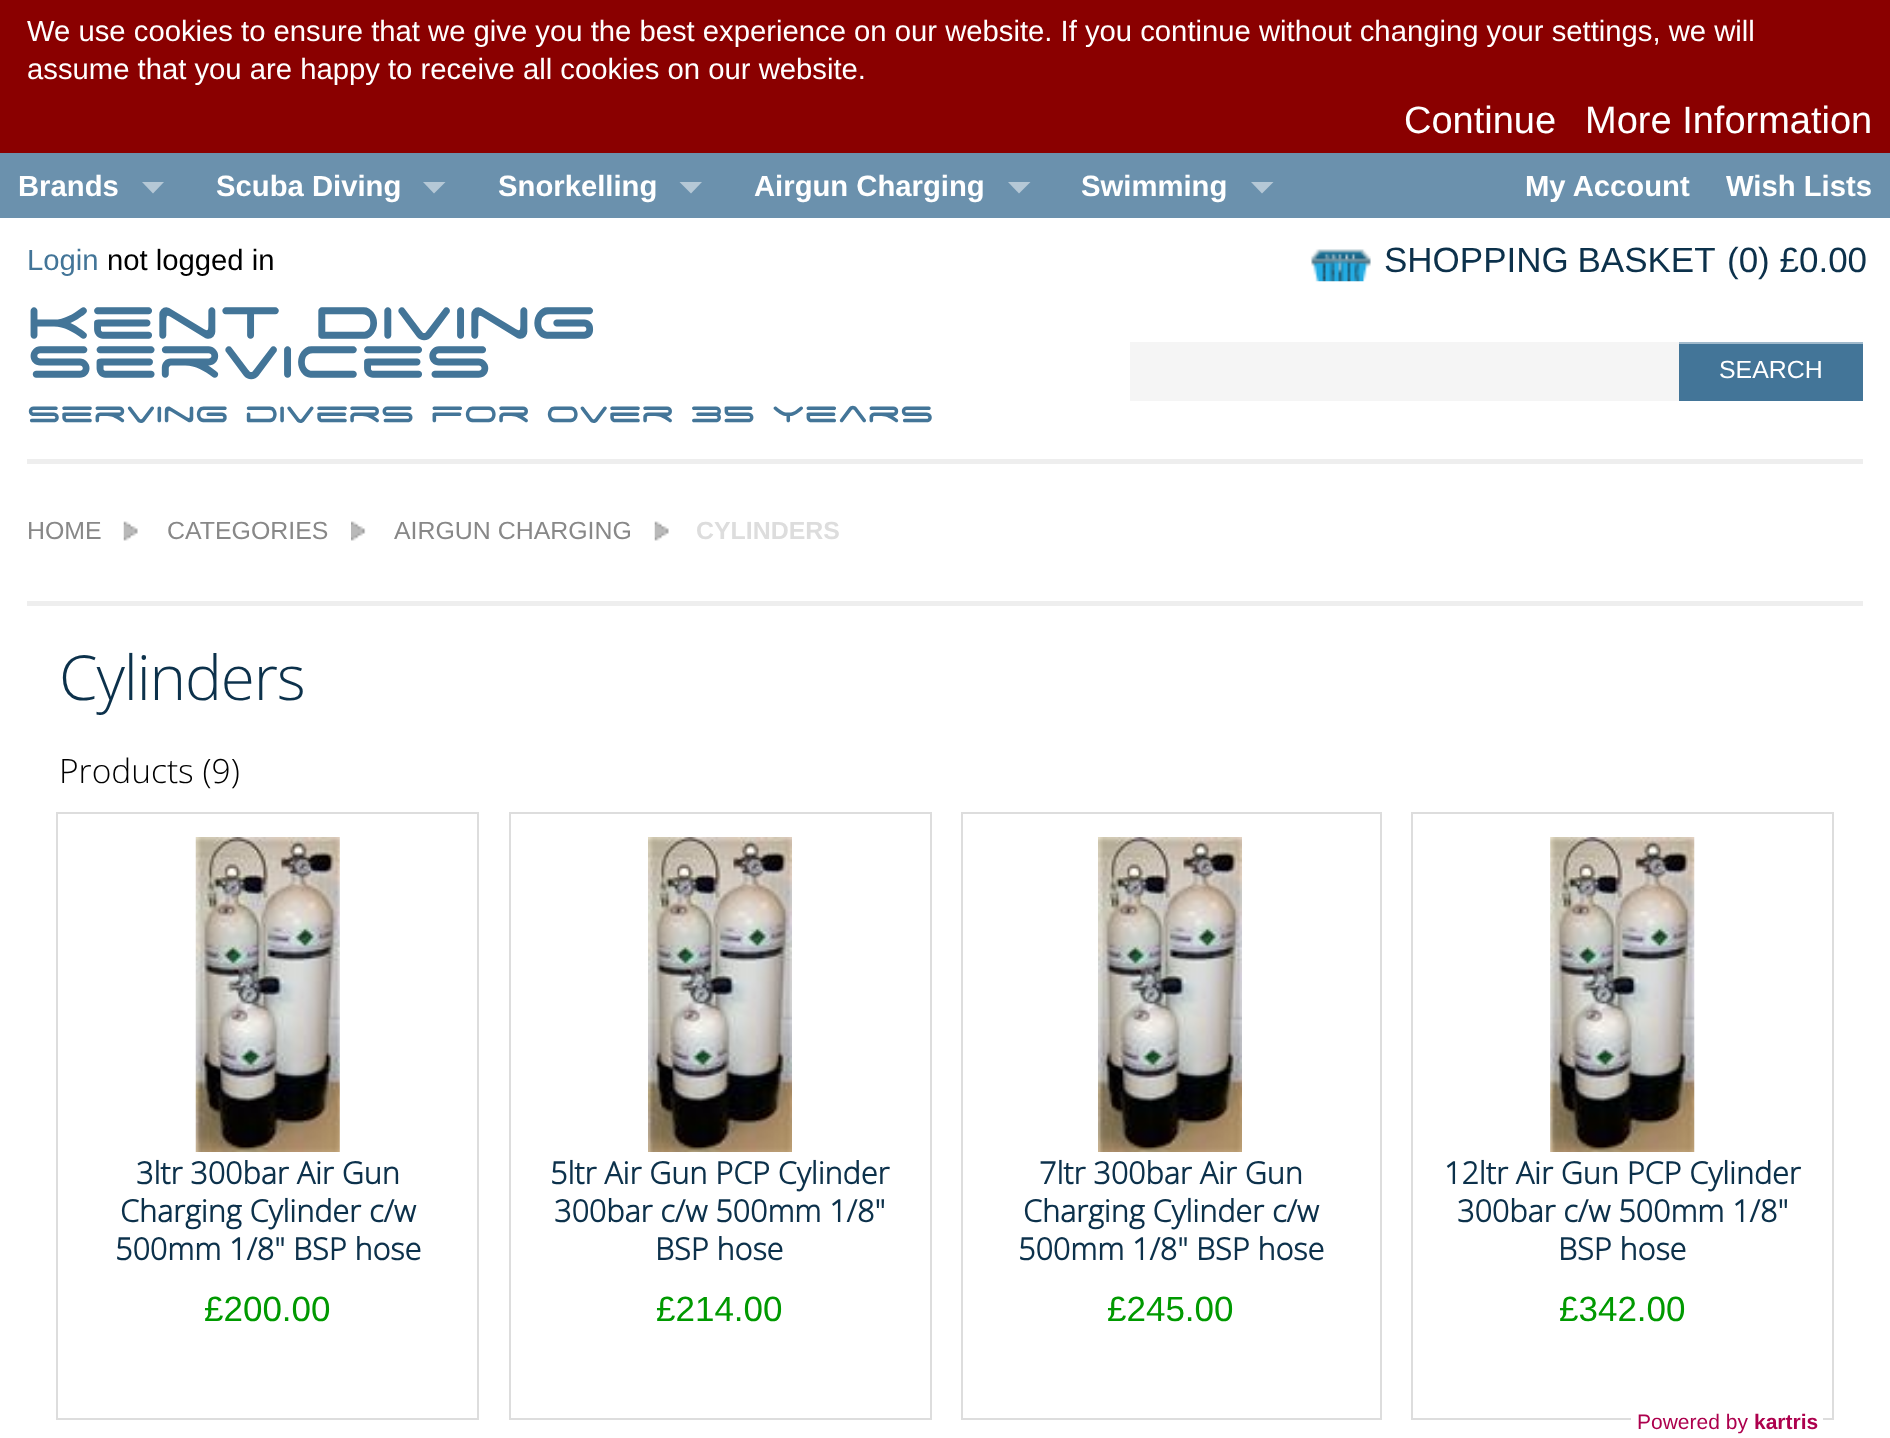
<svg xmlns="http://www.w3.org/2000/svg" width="1890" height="1438">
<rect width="100%" height="100%" fill="#fff"/>
<rect width="1890" height="153" fill="#8a0000"/>
<text x="27" y="41" style="font-family:Liberation Sans;font-size:29.25px;fill:#fff">We use cookies to ensure that we give you the best experience on our website. If you continue without changing your settings, we will</text>
<text x="27" y="79" style="font-family:Liberation Sans;font-size:29.25px;fill:#fff">assume that you are happy to receive all cookies on our website.</text>
<text x="1404" y="133" style="font-family:Liberation Sans;font-size:38px;fill:#fff">Continue</text>
<text x="1585" y="133" style="font-family:Liberation Sans;font-size:38px;fill:#fff">More Information</text>
<rect x="1307" y="153" width="583" height="65" fill="#6b91ad"/>
<rect y="153" width="1307" height="65" fill="#6b91ad"/>
<text x="18" y="196" style="font-family:Liberation Sans;font-size:29.25px;font-weight:bold;fill:#fff">Brands</text>
<path d="M142 182h22l-11 11.5z" fill="#b5c8d6"/>
<text x="216" y="196" style="font-family:Liberation Sans;font-size:29.25px;font-weight:bold;fill:#fff">Scuba Diving</text>
<path d="M423 182h22.5l-11.5 11.5z" fill="#b5c8d6"/>
<text x="498" y="196" style="font-family:Liberation Sans;font-size:29.25px;font-weight:bold;fill:#fff">Snorkelling</text>
<path d="M679.5 182h22.5l-11 11.5z" fill="#b5c8d6"/>
<text x="754" y="196" style="font-family:Liberation Sans;font-size:29.25px;font-weight:bold;fill:#fff">Airgun Charging</text>
<path d="M1008 182h22.5l-11.5 11.5z" fill="#b5c8d6"/>
<text x="1081" y="196" style="font-family:Liberation Sans;font-size:29.25px;font-weight:bold;fill:#fff">Swimming</text>
<path d="M1251 182h22.5l-11.5 11.5z" fill="#b5c8d6"/>
<text x="1525" y="196" style="font-family:Liberation Sans;font-size:29.25px;font-weight:bold;fill:#fff">My Account</text>
<text x="1726" y="196" style="font-family:Liberation Sans;font-size:29.25px;font-weight:bold;fill:#fff">Wish Lists</text>
<text x="27" y="270" style="font-family:Liberation Sans;font-size:29.25px;fill:#437598">Login</text>
<text x="107" y="270" style="font-family:Liberation Sans;font-size:29.25px;fill:#000">not logged in</text>
<image x="1310" y="249" width="61" height="33" href="media/1.png"/>
<text x="1384" y="272" word-spacing="-1" style="font-family:Liberation Sans;font-size:35px;fill:#0c314b">SHOPPING BASKET</text>
<text x="1727" y="272" style="font-family:Liberation Sans;font-size:35px;fill:#0c314b">(0) £0.00</text>
<text x="27" y="344" style="font-family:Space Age;font-size:72px;fill:#437598">Kent Diving</text>
<text x="27" y="383" style="font-family:Space Age;font-size:72px;fill:#437598">Services</text>
<text x="27" y="425" style="font-family:Space Age;font-size:36.6px;fill:#437598">Serving divers for over 35 years</text>
<rect x="1130" y="342" width="549" height="59" fill="#f5f5f5"/>
<rect x="1679" y="344" width="184" height="57" fill="#437598"/>
<rect x="1679" y="342" width="184" height="2" fill="#a1bacc"/>
<text x="1719" y="378" style="font-family:Liberation Sans;font-size:24.9px;fill:#fff">SEARCH</text>
<rect x="27" y="459" width="1836" height="5" fill="#eee"/>
<rect x="27" y="601" width="1836" height="5" fill="#eee"/>
<image x="123" y="521" width="15" height="20" href="media/2.png"/>
<text x="27" y="539" style="font-family:Liberation Sans;font-size:24.9px;fill:#888">HOME</text>
<image x="351" y="521" width="15" height="20" href="media/3.png"/>
<text x="167" y="539" style="font-family:Liberation Sans;font-size:24.9px;fill:#888">CATEGORIES</text>
<image x="654" y="521" width="15" height="20" href="media/4.png"/>
<text x="394" y="539" style="font-family:Liberation Sans;font-size:24.9px;fill:#888">AIRGUN CHARGING</text>
<text x="696" y="539" style="font-family:Liberation Sans;font-size:24.9px;font-weight:bold;fill:#ddd">CYLINDERS</text>
<text x="59" y="700" style="font-family:Open Sans;font-size:62px;font-weight:300;letter-spacing:-1.1px;fill:#0c314b">Cylinders</text>
<text x="59" y="783" style="font-family:Open Sans;font-size:33.5px;font-weight:300;fill:#000">Products (9)</text>
<rect x="57" y="813" width="421" height="606" fill="none" stroke="#ddd" stroke-width="2"/>
<image x="195" y="837" width="145" height="315" href="media/5.png"/>
<text x="136" y="1184" style="font-family:Open Sans;font-size:30.5px;font-weight:bold;fill:#0c314b">3ltr 300bar Air Gun</text>
<text x="120" y="1222" style="font-family:Open Sans;font-size:30.5px;font-weight:bold;fill:#0c314b">Charging Cylinder c/w</text>
<text x="115" y="1260" style="font-family:Open Sans;font-size:30.5px;font-weight:bold;fill:#0c314b">500mm 1/8" BSP hose</text>
<text x="204" y="1321" style="font-family:Liberation Sans;font-size:35px;fill:#090">£200.00</text>
<rect x="510" y="813" width="421" height="606" fill="none" stroke="#ddd" stroke-width="2"/>
<image x="648" y="837" width="144" height="315" href="media/6.png"/>
<text x="550" y="1184" style="font-family:Open Sans;font-size:30.5px;font-weight:bold;fill:#0c314b">5ltr Air Gun PCP Cylinder</text>
<text x="554" y="1222" style="font-family:Open Sans;font-size:30.5px;font-weight:bold;fill:#0c314b">300bar c/w 500mm 1/8"</text>
<text x="655" y="1260" style="font-family:Open Sans;font-size:30.5px;font-weight:bold;fill:#0c314b">BSP hose</text>
<text x="656" y="1321" style="font-family:Liberation Sans;font-size:35px;fill:#090">£214.00</text>
<rect x="962" y="813" width="419" height="606" fill="none" stroke="#ddd" stroke-width="2"/>
<image x="1098" y="837" width="144" height="315" href="media/7.png"/>
<text x="1039" y="1184" style="font-family:Open Sans;font-size:30.5px;font-weight:bold;fill:#0c314b">7ltr 300bar Air Gun</text>
<text x="1023" y="1222" style="font-family:Open Sans;font-size:30.5px;font-weight:bold;fill:#0c314b">Charging Cylinder c/w</text>
<text x="1018" y="1260" style="font-family:Open Sans;font-size:30.5px;font-weight:bold;fill:#0c314b">500mm 1/8" BSP hose</text>
<text x="1107" y="1321" style="font-family:Liberation Sans;font-size:35px;fill:#090">£245.00</text>
<rect x="1412" y="813" width="421" height="606" fill="none" stroke="#ddd" stroke-width="2"/>
<image x="1550" y="837" width="145" height="315" href="media/8.png"/>
<text x="1444" y="1184" style="font-family:Open Sans;font-size:30.5px;font-weight:bold;fill:#0c314b">12ltr Air Gun PCP Cylinder</text>
<text x="1457" y="1222" style="font-family:Open Sans;font-size:30.5px;font-weight:bold;fill:#0c314b">300bar c/w 500mm 1/8"</text>
<text x="1558" y="1260" style="font-family:Open Sans;font-size:30.5px;font-weight:bold;fill:#0c314b">BSP hose</text>
<text x="1559" y="1321" style="font-family:Liberation Sans;font-size:35px;fill:#090">£342.00</text>
<rect x="1631" y="1418" width="192" height="2" fill="#fff"/>
<text x="1637" y="1429" style="font-family:Liberation Sans;font-size:21px;fill:#ad004d">Powered by</text>
<text x="1754" y="1429" style="font-family:Liberation Sans;font-size:21px;font-weight:bold;fill:#ad004d">kartris</text>
</svg>
